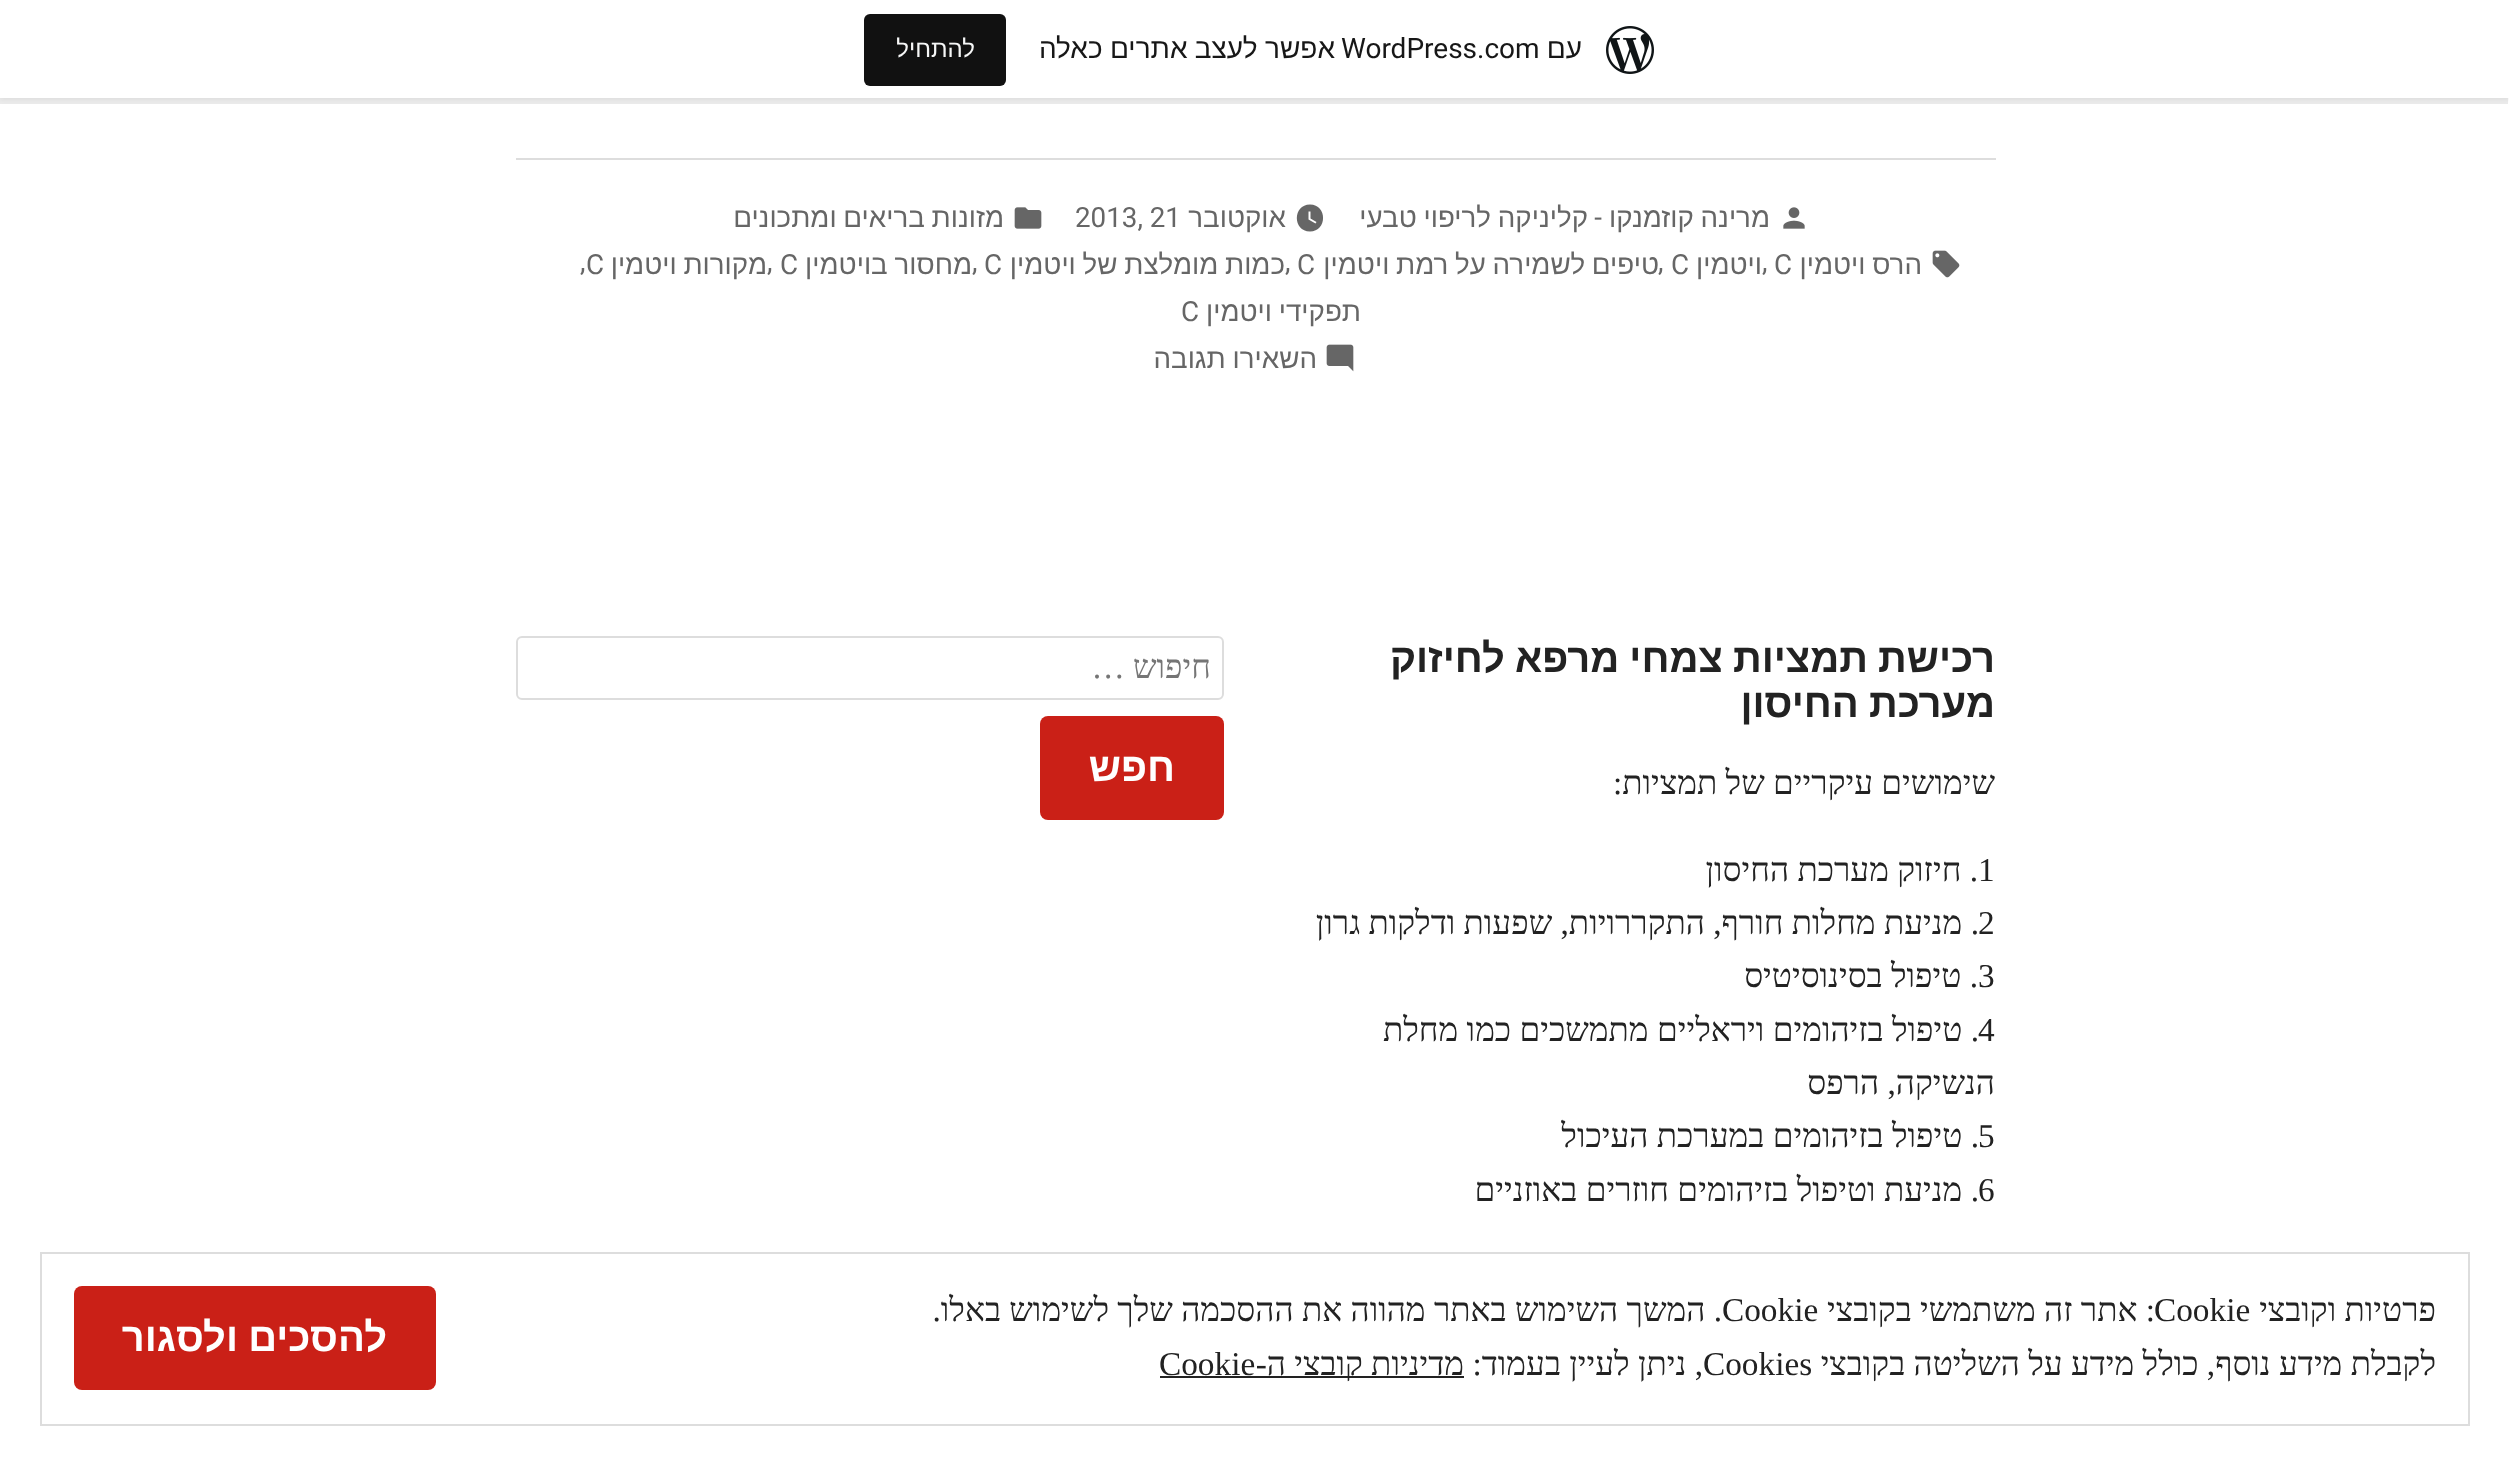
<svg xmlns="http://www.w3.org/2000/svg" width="2509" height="1465">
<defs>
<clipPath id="clip1"><rect x="516" y="508" width="1480" height="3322"/></clipPath>
</defs>
<rect width="100%" height="100%" fill="#fff"/>
<rect y="2" width="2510" height="98" fill="#0000000d" filter="blur(2px)"/>
<path d="M-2 6v98h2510v-6h-2508v-92z" fill="#00000014"/>
<rect width="2509" height="98" fill="#fff"/>
<image x="1606" y="26" width="48" height="48" href="media/1.png"/>
<text x="1582" y="58" style="font-family:Liberation Sans;font-size:28px;direction:rtl;fill:#171717">עם</text>
<text x="1341" y="58" style="font-family:Roboto;font-size:28px;fill:#171717">WordPress.com</text>
<text x="1335" y="58" word-spacing="-0.5" style="font-family:Liberation Sans;font-size:28px;direction:rtl;fill:#171717">אפשר לעצב אתרים כאלה</text>
<rect x="864" y="14" width="142" height="72" rx="6" fill="#111"/>
<text x="975" y="57" style="font-family:Liberation Sans;font-size:24px;direction:rtl;fill:#f6f7f7">להתחיל</text>
<rect x="516" y="158" width="1480" height="2" fill="#ddd"/>
<image x="1783" y="207" width="22" height="22" href="media/2.png"/>
<text x="1770" y="227" word-spacing="-1" style="font-family:Liberation Sans;font-size:27.75px;direction:rtl;fill:#666">מרינה קוזמנקו</text>
<text x="1602" y="227" style="font-family:Roboto;font-size:27.75px;direction:rtl;fill:#666">-</text>
<text x="1588" y="227" word-spacing="-1" style="font-family:Liberation Sans;font-size:27.75px;direction:rtl;fill:#666">קליניקה לריפוי טבעי</text>
<path d="M1310 204.5c-17.5 0-17.5 27 0 27c17.5 0 17.5-27 0-27zm5.5 19l-7-4v-8h2v7l6 3.5z" fill="#666"/>
<text x="1286" y="227" style="font-family:Liberation Sans;font-size:27.75px;direction:rtl;fill:#666">אוקטובר</text>
<text x="1075" y="227" style="font-family:Roboto;font-size:27.75px;fill:#666">2013, 21</text>
<image x="1014" y="207" width="28" height="22" href="media/3.png"/>
<text x="1004" y="227" word-spacing="-1" style="font-family:Liberation Sans;font-size:27.75px;direction:rtl;fill:#666">מזונות בריאים ומתכונים</text>
<image x="1932" y="250" width="28" height="28" href="media/4.png"/>
<text x="1922" y="274" word-spacing="-1" style="font-family:Liberation Sans;font-size:27.75px;direction:rtl;fill:#666">הרס ויטמין</text>
<text x="1774" y="274" style="font-family:Roboto;font-size:27.75px;fill:#666">C</text>
<text x="1762" y="274" style="font-family:Liberation Sans;font-size:27.75px;direction:rtl;fill:#666">ויטמין</text>
<text x="1671" y="274" style="font-family:Roboto;font-size:27.75px;fill:#666">C</text>
<text x="1658" y="271" style="font-family:Roboto;font-size:27.75px;fill:#666">,</text>
<text x="1659" y="274" word-spacing="-1" style="font-family:Liberation Sans;font-size:27.75px;direction:rtl;fill:#666">טיפים לשמירה על רמת ויטמין</text>
<text x="1297" y="274" style="font-family:Roboto;font-size:27.75px;fill:#666">C</text>
<text x="1285" y="271" style="font-family:Roboto;font-size:27.75px;fill:#666">,</text>
<text x="1285" y="274" word-spacing="-1" style="font-family:Liberation Sans;font-size:27.75px;direction:rtl;fill:#666">כמות מומלצת של ויטמין</text>
<text x="984" y="274" style="font-family:Roboto;font-size:27.75px;fill:#666">C</text>
<text x="972" y="271" style="font-family:Roboto;font-size:27.75px;fill:#666">,</text>
<text x="972" y="274" word-spacing="-1" style="font-family:Liberation Sans;font-size:27.75px;direction:rtl;fill:#666">מחסור בויטמין</text>
<text x="780" y="274" style="font-family:Roboto;font-size:27.75px;fill:#666">C</text>
<text x="767" y="271" style="font-family:Roboto;font-size:27.75px;fill:#666">,</text>
<text x="767" y="274" word-spacing="-1" style="font-family:Liberation Sans;font-size:27.75px;direction:rtl;fill:#666">מקורות ויטמין</text>
<text x="586" y="274" style="font-family:Roboto;font-size:27.75px;fill:#666">C</text>
<text x="580" y="271" style="font-family:Roboto;font-size:27.75px;fill:#666">,</text>
<text x="1762" y="271" style="font-family:Roboto;font-size:27.75px;fill:#666">,</text>
<text x="1361" y="321" word-spacing="-1" style="font-family:Liberation Sans;font-size:27.75px;direction:rtl;fill:#666">תפקידי ויטמין</text>
<text x="1181" y="321" style="font-family:Roboto;font-size:27.75px;fill:#666">C</text>
<image x="1326" y="344" width="28" height="28" href="media/5.png"/>
<text x="1317" y="368" word-spacing="-1" style="font-family:Liberation Sans;font-size:27.75px;direction:rtl;fill:#666">השאירו תגובה</text>
<g clip-path="url(#clip1)">
<text x="1995" y="672" word-spacing="-1" style="font-family:Liberation Sans;font-size:40px;font-weight:bold;direction:rtl;fill:#222">רכישת תמציות צמחי מרפא לחיזוק</text>
</g>
<text x="1995" y="717" word-spacing="-1" style="font-family:Liberation Sans;font-size:40px;font-weight:bold;direction:rtl;fill:#222">מערכת החיסון</text>
<text x="1995" y="794" style="font-family:Liberation Serif;font-size:33.3px;direction:rtl;fill:#222">שימושים עיקריים של תמציות:</text>
<text x="1978" y="881" style="font-family:Liberation Serif;font-size:33.3px;fill:#222">1</text>
<text x="1978" y="881" style="font-family:Liberation Serif;font-size:33.3px;direction:rtl;fill:#222">. חיזוק מערכת החיסון</text>
<text x="1978" y="934" style="font-family:Liberation Serif;font-size:33.3px;fill:#222">2</text>
<text x="1979" y="934" style="font-family:Liberation Serif;font-size:33.3px;direction:rtl;fill:#222">. מניעת מחלות חורף, התקררויות, שפעות ודלקות גרון</text>
<text x="1978" y="987" style="font-family:Liberation Serif;font-size:33.3px;fill:#222">3</text>
<text x="1978" y="987" style="font-family:Liberation Serif;font-size:33.3px;direction:rtl;fill:#222">. טיפול בסינוסיטיס</text>
<text x="1978" y="1041" style="font-family:Liberation Serif;font-size:33.3px;fill:#222">4</text>
<text x="1979" y="1041" style="font-family:Liberation Serif;font-size:33.3px;direction:rtl;fill:#222">. טיפול בזיהומים ויראליים מתמשכים כמו מחלת</text>
<text x="1995" y="1094" style="font-family:Liberation Serif;font-size:33.3px;direction:rtl;fill:#222">הנשיקה, הרפס</text>
<text x="1978" y="1147" style="font-family:Liberation Serif;font-size:33.3px;fill:#222">5</text>
<text x="1979" y="1147" style="font-family:Liberation Serif;font-size:33.3px;direction:rtl;fill:#222">. טיפול בזיהומים במערכת העיכול</text>
<text x="1978" y="1201" style="font-family:Liberation Serif;font-size:33.3px;fill:#222">6</text>
<text x="1979" y="1201" style="font-family:Liberation Serif;font-size:33.3px;direction:rtl;fill:#222">. מניעת וטיפול בזיהומים חוזרים באוזניים</text>
<rect x="517" y="637" width="706" height="62" rx="5" fill="none" stroke="#ddd" stroke-width="2"/>
<text x="1211" y="678" style="font-family:Liberation Serif;font-size:33.3px;direction:rtl;fill:#757575">חיפוש …</text>
<rect x="1040" y="716" width="184" height="104" rx="8" fill="#ca2017"/>
<text x="1175" y="781" style="font-family:Liberation Sans;font-size:40px;font-weight:bold;direction:rtl;fill:#fff">חפש</text>
<rect x="41" y="1253" width="2428" height="172" fill="none" stroke="#ddd" stroke-width="2"/>
<text x="2436" y="1321" style="font-family:Liberation Serif;font-size:33.3px;direction:rtl;fill:#222">פרטיות וקובצי</text>
<text x="2154" y="1321" style="font-family:Liberation Serif;font-size:33.3px;fill:#222">Cookie</text>
<text x="2155" y="1321" style="font-family:Liberation Serif;font-size:33.3px;direction:rtl;fill:#222">: אתר זה משתמשי בקובצי</text>
<text x="1722" y="1321" style="font-family:Liberation Serif;font-size:33.3px;fill:#222">Cookie</text>
<text x="1722" y="1321" style="font-family:Liberation Serif;font-size:33.3px;direction:rtl;fill:#222">. המשך השימוש באתר מהווה את ההסכמה שלך לשימוש באלו.</text>
<rect x="74" y="1286" width="362" height="104" rx="8" fill="#ca2017"/>
<text x="387" y="1351" word-spacing="-1" style="font-family:Liberation Sans;font-size:40px;font-weight:bold;direction:rtl;fill:#fff">להסכים ולסגור</text>
<text x="2436" y="1375" style="font-family:Liberation Serif;font-size:33.3px;direction:rtl;fill:#222">לקבלת מידע נוסף, כולל מידע על השליטה בקובצי</text>
<text x="1703" y="1375" style="font-family:Liberation Serif;font-size:33.3px;fill:#222">Cookies</text>
<text x="1703" y="1375" style="font-family:Liberation Serif;font-size:33.3px;direction:rtl;fill:#222">, ניתן לעיין בעמוד:</text>
<rect x="1160" y="1376" width="304" height="2" fill="#222"/>
<text x="1464" y="1375" style="font-family:Liberation Serif;font-size:33.3px;direction:rtl;fill:#222">מדיניות קובצי ה-</text>
<text x="1159" y="1375" style="font-family:Liberation Serif;font-size:33.3px;fill:#222">Cookie</text>
</svg>
